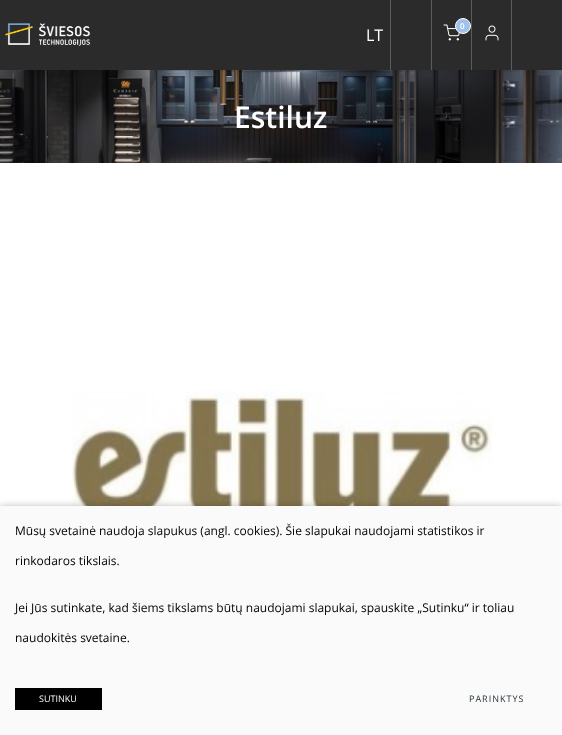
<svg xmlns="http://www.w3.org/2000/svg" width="562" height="735">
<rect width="100%" height="100%" fill="#fff"/>
<image x="0" y="70" width="562" height="93" href="media/4.png"/>
<rect width="562" height="70" fill="#00000026" filter="blur(3.5px)"/>
<rect width="562" height="70" fill="#2b2b2b"/>
<image x="5" y="23" width="86" height="23" href="media/1.png"/>
<rect x="431" width="1" height="70" fill="#585f55"/>
<rect x="471" width="1" height="70" fill="#585f55"/>
<image x="443" y="24" width="17" height="17" href="media/2.png"/>
<circle cx="463" cy="26" r="7.5" fill="#9fc1ea" stroke="#fff"/>
<text x="460" y="29" style="font-family:Open Sans;font-size:8px;font-weight:600;fill:#fff">0</text>
<rect x="511" width="1" height="70" fill="#585f55"/>
<image x="485" y="25" width="14" height="16" href="media/3.png"/>
<rect x="390" width="1" height="70" fill="#585f55"/>
<text x="366" y="41" style="font-family:Open Sans;font-size:16px;fill:#fff">LT</text>
<text x="234" y="128" style="font-family:Open Sans;font-size:30px;font-weight:600;fill:#fff">Estiluz</text>
<image x="71" y="390" width="421" height="116" href="media/5.png"/>
<rect y="506" width="562" height="229" fill="#00000040" filter="blur(3.5px)"/>
<rect y="506" width="562" height="229" fill="#fafafa"/>
<text x="15" y="535" style="font-family:Open Sans;font-size:12px;fill:#000">Mūsų svetainė naudoja slapukus (angl. cookies). Šie slapukai naudojami statistikos ir</text>
<text x="15" y="565" style="font-family:Open Sans;font-size:12px;fill:#000">rinkodaros tikslais.</text>
<text x="15" y="612" style="font-family:Open Sans;font-size:12px;fill:#000">Jei Jūs sutinkate, kad šiems tikslams būtų naudojami slapukai, spauskite „Sutinku“ ir toliau</text>
<text x="15" y="642" style="font-family:Open Sans;font-size:12px;fill:#000">naudokitės svetaine.</text>
<rect x="15" y="688" width="87" height="22" fill="#000"/>
<text x="39" y="702" style="font-family:Open Sans;font-size:9px;fill:#fff">SUTINKU</text>
<text x="469" y="702" style="font-family:Open Sans;font-size:9px;letter-spacing:1px;fill:#263238">PARINKTYS</text>
</svg>
